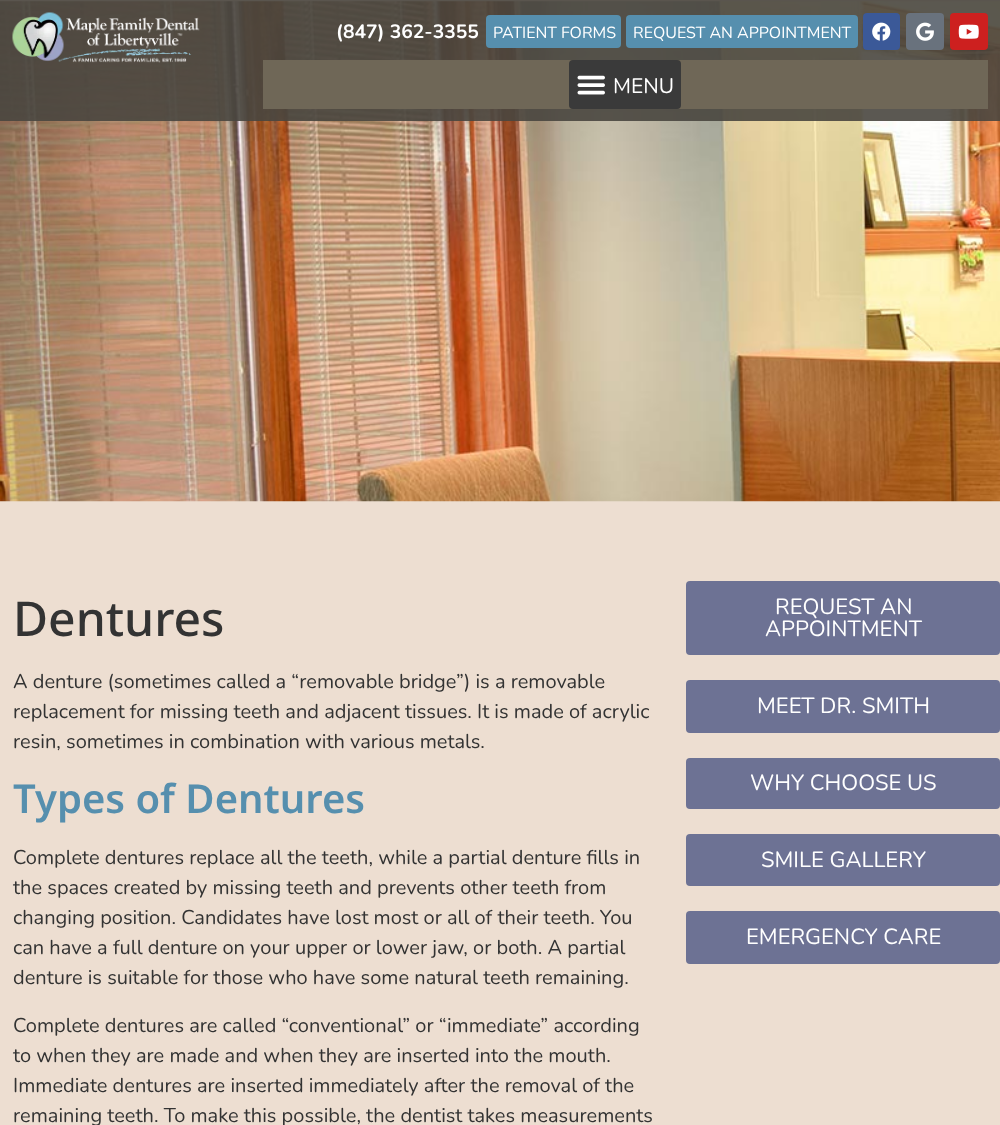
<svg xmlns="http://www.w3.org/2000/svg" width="1000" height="1125">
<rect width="100%" height="100%" fill="#edded1"/>
<image x="0" y="1" width="1000" height="501" href="media/6.png"/>
<rect width="1000" height="121" fill="#49463fe6"/>
<image x="12" y="12" width="188" height="51" href="media/1.png"/>
<text x="336" y="38" style="font-family:Nunito;font-size:19.25px;font-weight:bold;fill:#fff">(847) 362-3355</text>
<rect x="486" y="15" width="135" height="33" rx="4" fill="#568fae"/>
<text x="493" y="38" style="font-family:Nunito;font-size:16px;fill:#fff">PATIENT FORMS</text>
<rect x="626" y="15" width="232" height="33" rx="4" fill="#568fae"/>
<text x="633" y="38" style="font-family:Nunito;font-size:16px;fill:#fff">REQUEST AN APPOINTMENT</text>
<rect x="863" y="13" width="37" height="37" rx="4" fill="#3b5998"/>
<image x="872" y="22" width="19" height="19" href="media/2.png"/>
<rect x="906" y="13" width="38" height="37" rx="4" fill="#69727d"/>
<image x="916" y="22" width="18" height="19" href="media/3.png"/>
<rect x="950" y="13" width="38" height="37" rx="4" fill="#cd201f"/>
<image x="958" y="24" width="21" height="15" href="media/4.png"/>
<rect x="263" y="60" width="725" height="49" fill="#6f6757"/>
<rect x="569" y="60" width="112" height="49" rx="4" fill="#3a3a3a"/>
<image x="577" y="75" width="28" height="20" href="media/5.png"/>
<text x="613" y="93" style="font-family:Nunito;font-size:21px;fill:#fff">MENU</text>
<text x="13" y="636" style="font-family:Noto Sans;font-size:48px;font-weight:500;fill:#333">Dentures</text>
<text x="13" y="688" style="font-family:Nunito;font-size:20px;fill:#333">A denture (sometimes called a “removable bridge”) is a removable</text>
<text x="13" y="718" style="font-family:Nunito;font-size:20px;fill:#333">replacement for missing teeth and adjacent tissues. It is made of acrylic</text>
<text x="13" y="748" style="font-family:Nunito;font-size:20px;fill:#333">resin, sometimes in combination with various metals.</text>
<text x="13" y="813" style="font-family:Noto Sans;font-size:40px;font-weight:600;fill:#568fae">Types of Dentures</text>
<text x="13" y="864" style="font-family:Nunito;font-size:20px;fill:#333">Complete dentures replace all the teeth, while a partial denture fills in</text>
<text x="13" y="894" style="font-family:Nunito;font-size:20px;fill:#333">the spaces created by missing teeth and prevents other teeth from</text>
<text x="13" y="924" style="font-family:Nunito;font-size:20px;fill:#333">changing position. Candidates have lost most or all of their teeth. You</text>
<text x="13" y="954" style="font-family:Nunito;font-size:20px;fill:#333">can have a full denture on your upper or lower jaw, or both. A partial</text>
<text x="13" y="984" style="font-family:Nunito;font-size:20px;fill:#333">denture is suitable for those who have some natural teeth remaining.</text>
<text x="13" y="1032" style="font-family:Nunito;font-size:20px;fill:#333">Complete dentures are called “conventional” or “immediate” according</text>
<text x="13" y="1062" style="font-family:Nunito;font-size:20px;fill:#333">to when they are made and when they are inserted into the mouth.</text>
<text x="13" y="1092" style="font-family:Nunito;font-size:20px;fill:#333">Immediate dentures are inserted immediately after the removal of the</text>
<text x="13" y="1122" style="font-family:Nunito;font-size:20px;fill:#333">remaining teeth. To make this possible, the dentist takes measurements</text>
<rect x="686" y="581" width="314" height="74" rx="4" fill="#6d7294"/>
<text x="775" y="614" style="font-family:Nunito;font-size:22px;fill:#fff">REQUEST AN</text>
<text x="765" y="636" style="font-family:Nunito;font-size:22px;fill:#fff">APPOINTMENT</text>
<rect x="686" y="680" width="314" height="53" rx="4" fill="#6d7294"/>
<text x="757" y="713" style="font-family:Nunito;font-size:22px;fill:#fff">MEET DR. SMITH</text>
<rect x="686" y="758" width="314" height="51" rx="4" fill="#6d7294"/>
<text x="750" y="790" style="font-family:Nunito;font-size:22px;fill:#fff">WHY CHOOSE US</text>
<rect x="686" y="834" width="314" height="52" rx="4" fill="#6d7294"/>
<text x="761" y="867" style="font-family:Nunito;font-size:22px;fill:#fff">SMILE GALLERY</text>
<rect x="686" y="911" width="314" height="53" rx="4" fill="#6d7294"/>
<text x="746" y="944" style="font-family:Nunito;font-size:22px;fill:#fff">EMERGENCY CARE</text>
</svg>
